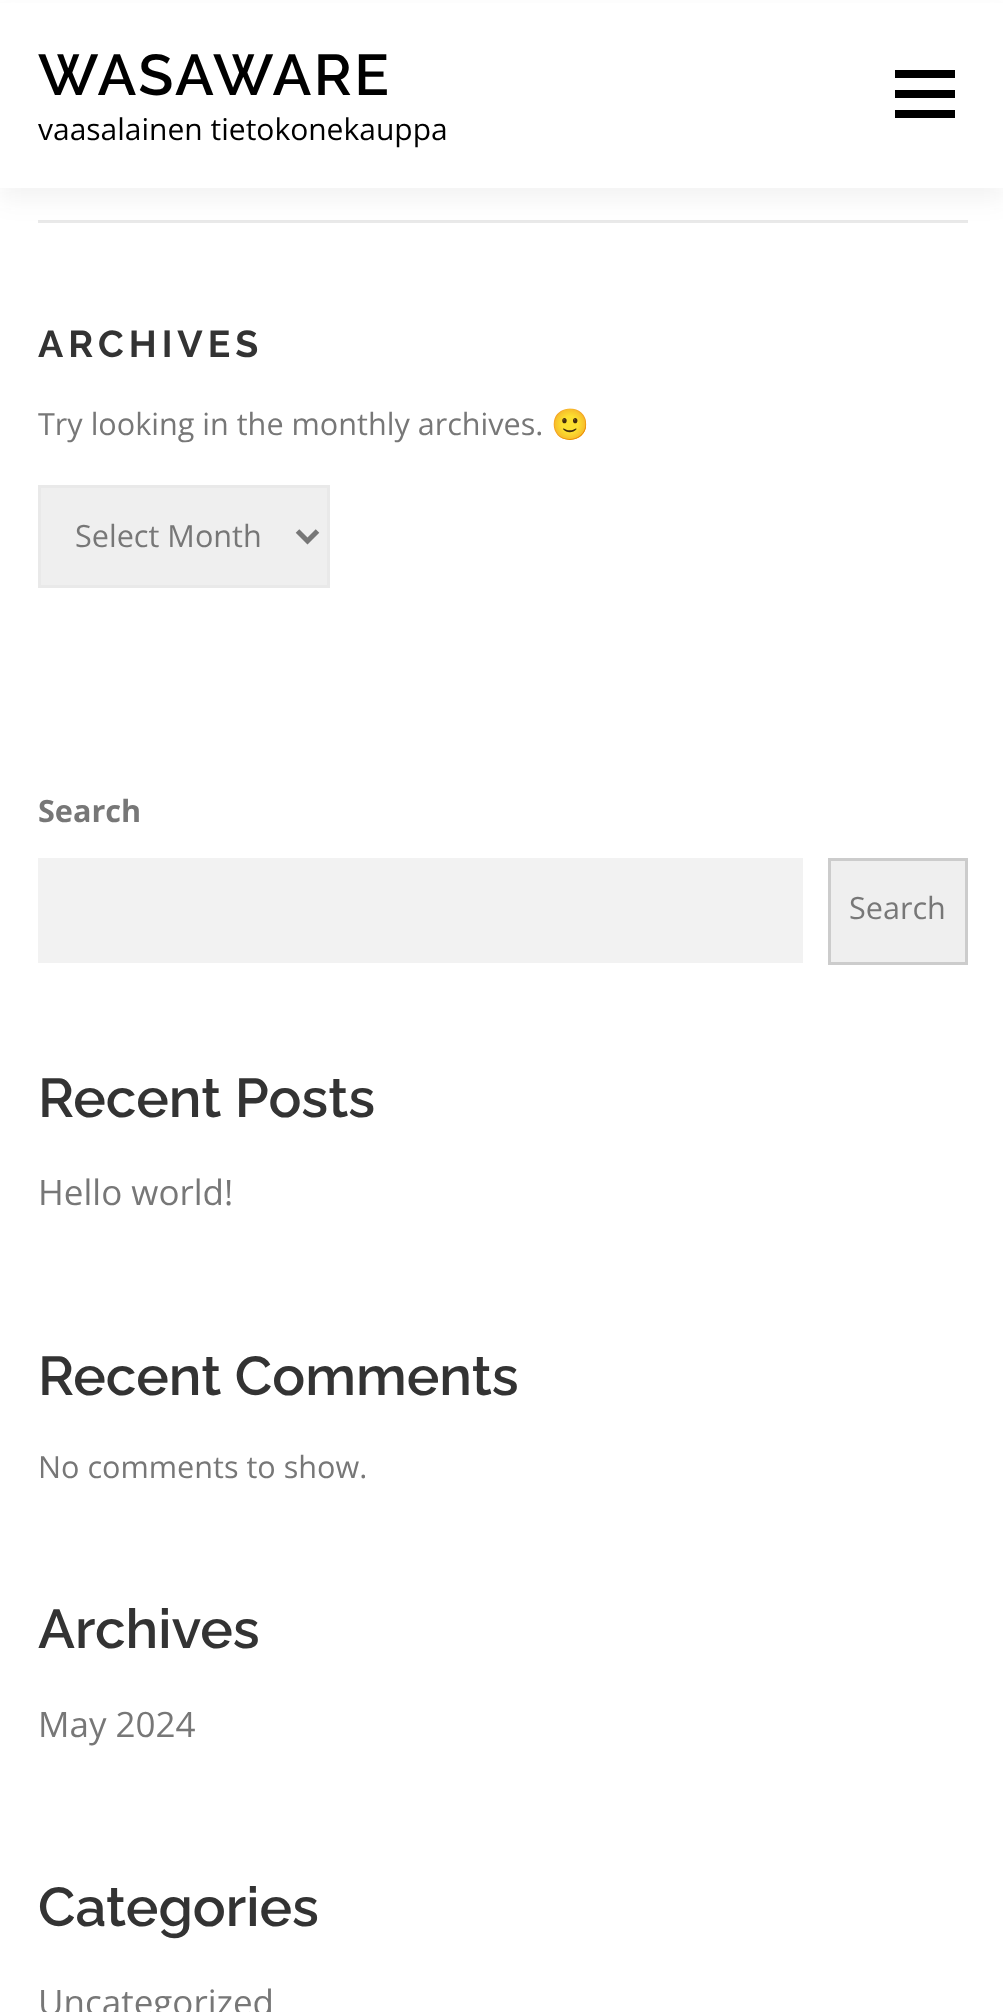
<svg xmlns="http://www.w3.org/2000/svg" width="1003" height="2012">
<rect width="100%" height="100%" fill="#fff"/>
<rect x="38" y="220" width="930" height="3" fill="#e9e9e9"/>
<rect y="13" width="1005" height="187" fill="#3232320f" filter="blur(12.5px)"/>
<rect y="3" width="1003" height="185" fill="#fff"/>
<text x="38" y="95" style="font-family:Raleway;font-size:57.5px;font-weight:600;letter-spacing:2.5px;fill:#000">WASAWARE</text>
<text x="38" y="140" style="font-family:Open Sans;font-size:30px;fill:#000">vaasalainen tietokonekauppa</text>
<rect x="895" y="90" width="60" height="8" fill="#000"/>
<rect x="895" y="70" width="60" height="8" fill="#000"/>
<rect x="895" y="110" width="60" height="8" fill="#000"/>
<text x="38" y="357" style="font-family:Raleway;font-size:37.5px;font-weight:bold;letter-spacing:5px;fill:#333">ARCHIVES</text>
<text x="38" y="435" style="font-family:Open Sans;font-size:30.6px;fill:#777">Try looking in the monthly archives.</text>
<text x="551" y="435" style="font-family:Noto Color Emoji;font-size:30.6px;fill:#777">🙂</text>
<rect x="39.5" y="486.5" width="289" height="100" fill="#efefef" stroke="#e9e9e9" stroke-width="3"/>
<path d="M297.5 531l10 10l10-10" fill="none" stroke="#777" stroke-width="5"/>
<text x="75" y="547" style="font-family:Open Sans;font-size:30.6px;fill:#777">Select Month</text>
<text x="38" y="822" style="font-family:Open Sans;font-size:30.6px;font-weight:bold;fill:#777">Search</text>
<rect x="38" y="858" width="765" height="105" fill="#f2f2f2"/>
<rect x="829.5" y="859.5" width="137" height="104" fill="#efefef" stroke="#ccc" stroke-width="3"/>
<text x="849" y="919" style="font-family:Open Sans;font-size:30.6px;fill:#777">Search</text>
<text x="38" y="1117" style="font-family:Raleway;font-size:54.75px;font-weight:600;fill:#333">Recent Posts</text>
<text x="38" y="1205" style="font-family:Open Sans;font-size:35px;fill:#777">Hello world!</text>
<text x="38" y="1395" style="font-family:Raleway;font-size:54.75px;font-weight:600;fill:#333">Recent Comments</text>
<text x="38" y="1478" style="font-family:Open Sans;font-size:30.6px;fill:#777">No comments to show.</text>
<text x="38" y="1648" style="font-family:Raleway;font-size:54.75px;font-weight:600;fill:#333">Archives</text>
<text x="38" y="1737" style="font-family:Open Sans;font-size:35px;fill:#777">May 2024</text>
<text x="38" y="1926" style="font-family:Raleway;font-size:54.75px;font-weight:600;fill:#333">Categories</text>
<text x="38" y="2015" style="font-family:Open Sans;font-size:35px;fill:#777">Uncategorized</text>
</svg>
